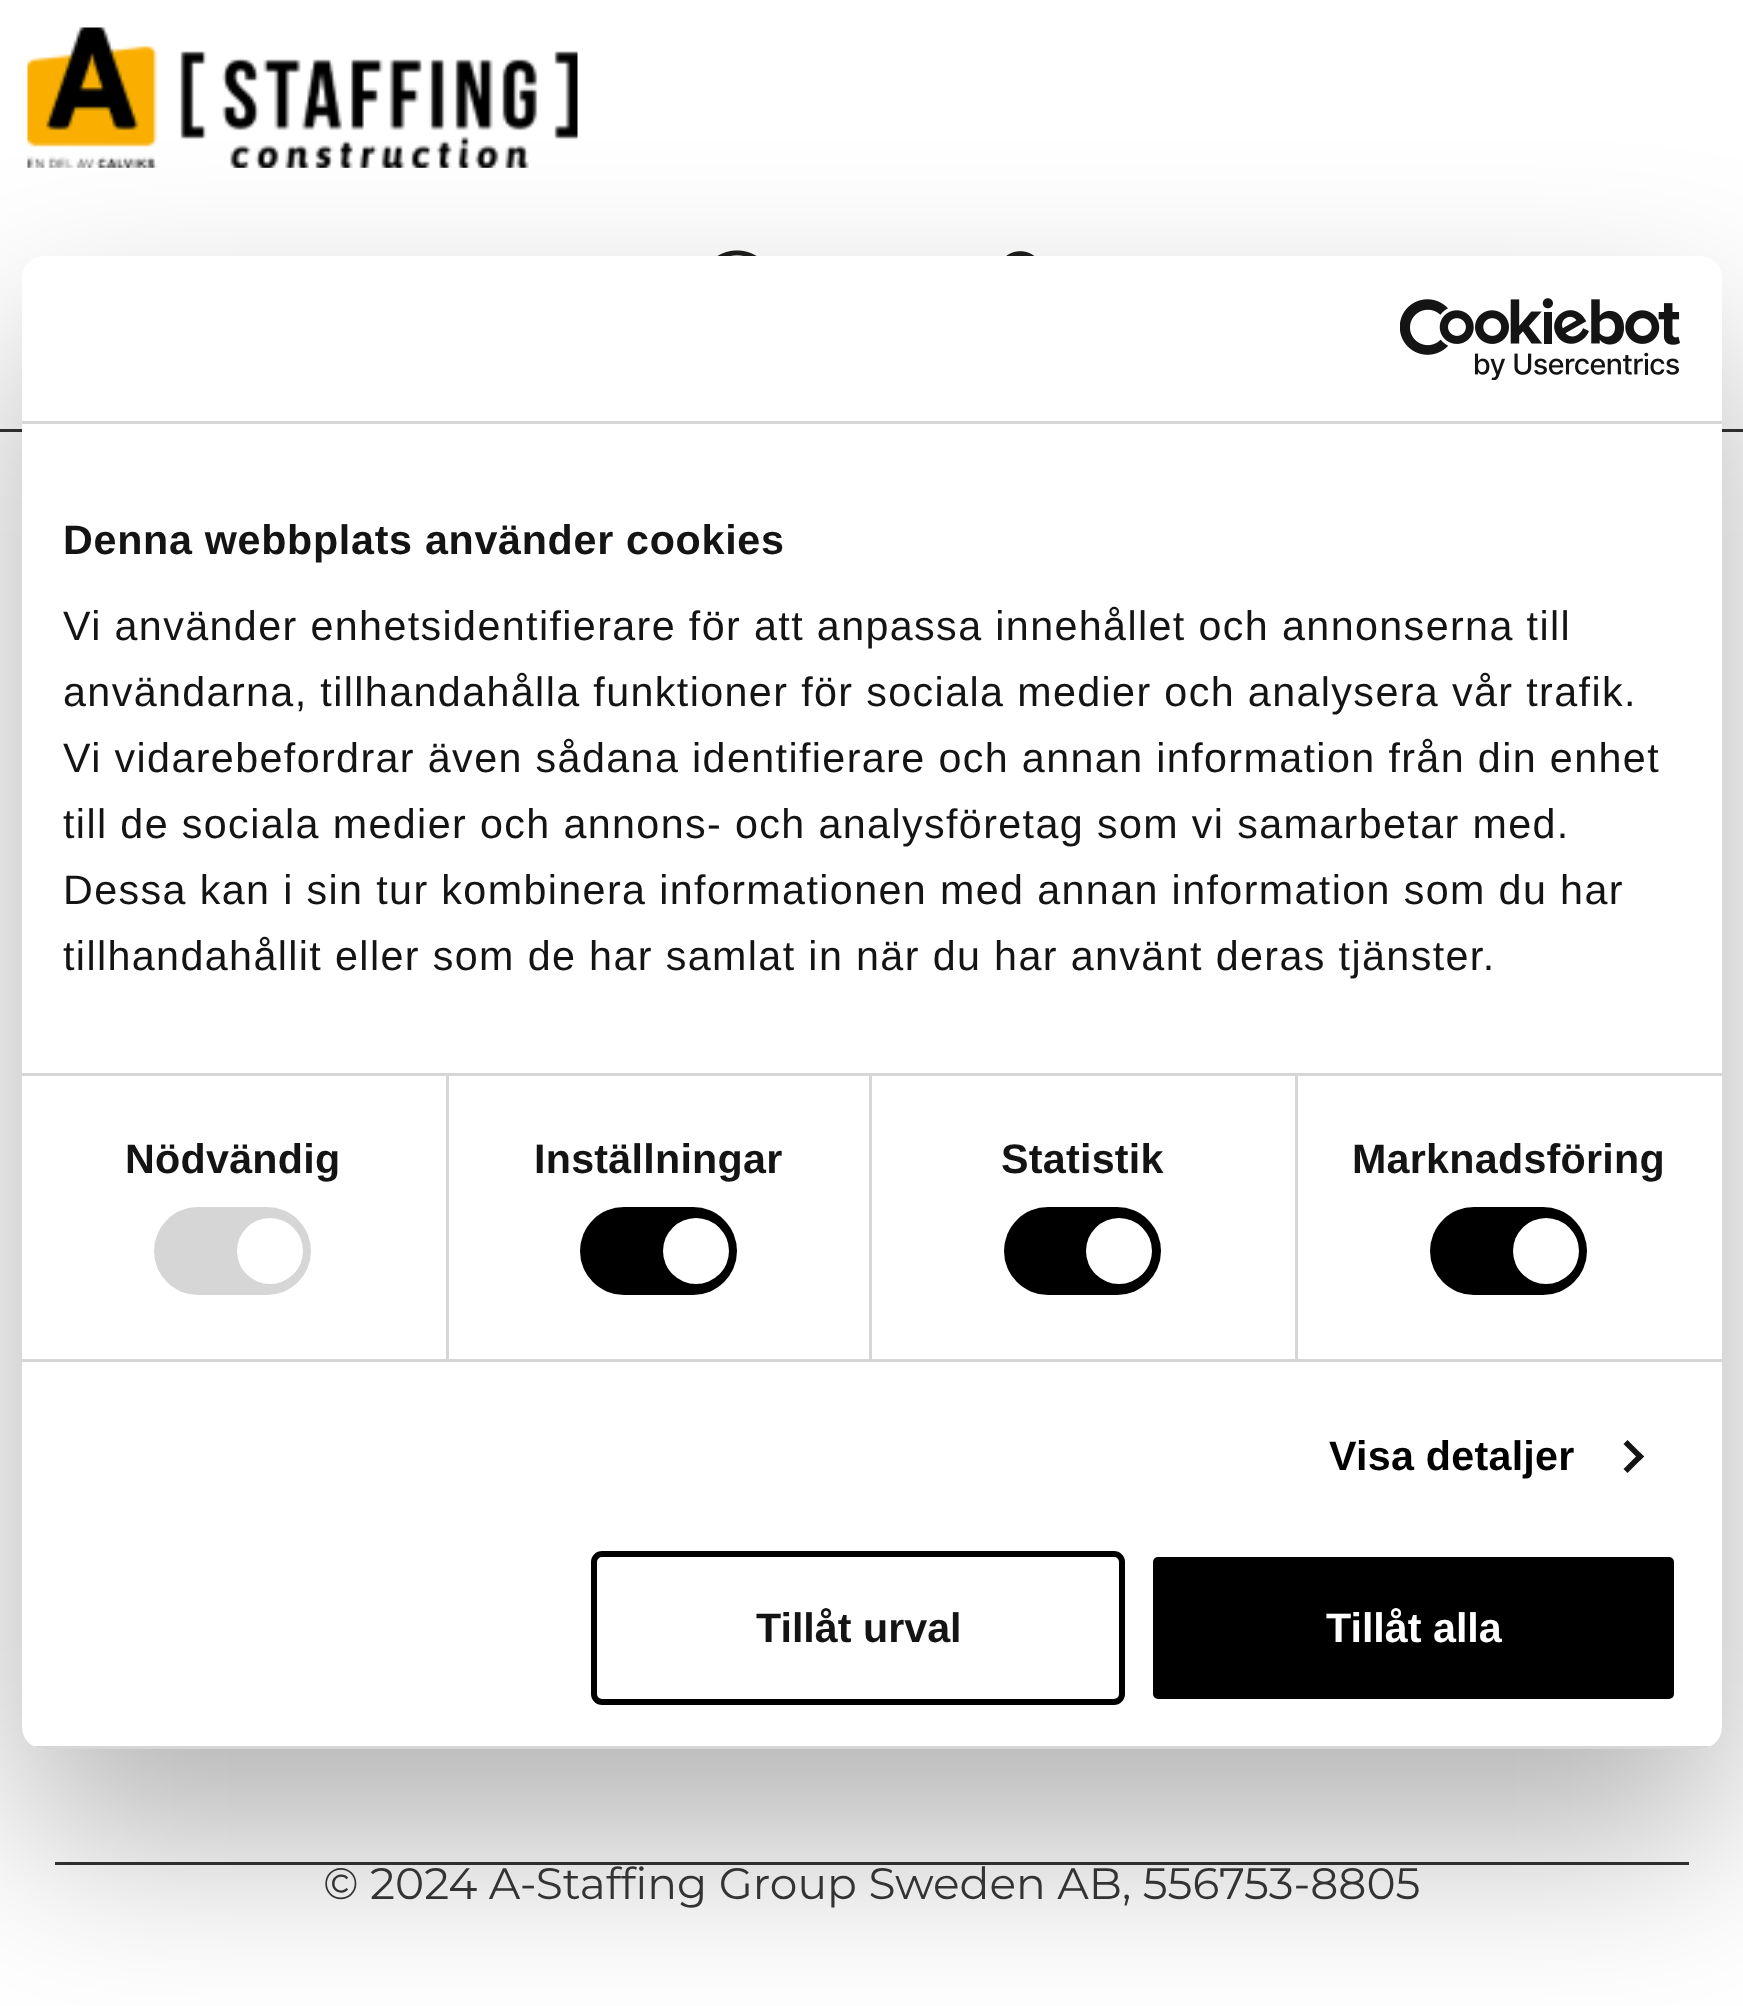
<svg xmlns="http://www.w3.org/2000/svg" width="1743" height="2006">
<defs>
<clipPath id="clip1"><rect x="22" y="256" width="1700" height="1493" rx="22"/></clipPath>
</defs>
<rect width="100%" height="100%" fill="#fff"/>
<rect y="429" width="1743" height="3" fill="#333"/>
<image x="27" y="27" width="551" height="141" href="media/1.png"/>
<image x="717" y="250" width="40" height="6" href="media/2.png"/>
<image x="1006" y="251" width="29" height="5" href="media/3.png"/>
<rect x="55" y="1862" width="1634" height="3" fill="#333"/>
<rect x="22" y="344" width="1700" height="1493" rx="22" fill="#0000004d" filter="blur(93.5px)"/>
<rect x="22" y="256" width="1700" height="1493" rx="22" fill="#fff"/>
<rect x="22" y="421" width="1700" height="3" fill="#d6d6d6"/>
<image x="1400" y="298" width="280" height="82" href="media/4.png"/>
<rect x="446" y="1075" width="3" height="284" fill="#d6d6d6"/>
<rect x="869" y="1075" width="3" height="284" fill="#d6d6d6"/>
<rect x="1295" y="1075" width="3" height="284" fill="#d6d6d6"/>
<rect x="22" y="1073" width="1700" height="3" fill="#d6d6d6"/>
<text x="63" y="554" style="font-family:Liberation Sans;font-size:41.25px;font-weight:bold;letter-spacing:0.7px;fill:#141414">Denna webbplats använder cookies</text>
<text x="63" y="640" style="font-family:Liberation Sans;font-size:41.25px;letter-spacing:1.38px;fill:#141414">Vi använder enhetsidentifierare för att anpassa innehållet och annonserna till</text>
<text x="63" y="706" style="font-family:Liberation Sans;font-size:41.25px;letter-spacing:1.38px;fill:#141414">användarna, tillhandahålla funktioner för sociala medier och analysera vår trafik.</text>
<text x="63" y="772" style="font-family:Liberation Sans;font-size:41.25px;letter-spacing:1.38px;fill:#141414">Vi vidarebefordrar även sådana identifierare och annan information från din enhet</text>
<text x="63" y="838" style="font-family:Liberation Sans;font-size:41.25px;letter-spacing:1.38px;fill:#141414">till de sociala medier och annons- och analysföretag som vi samarbetar med.</text>
<text x="63" y="904" style="font-family:Liberation Sans;font-size:41.25px;letter-spacing:1.38px;fill:#141414">Dessa kan i sin tur kombinera informationen med annan information som du har</text>
<text x="63" y="970" style="font-family:Liberation Sans;font-size:41.25px;letter-spacing:1.38px;fill:#141414">tillhandahållit eller som de har samlat in när du har använt deras tjänster.</text>
<rect x="22" y="1359" width="1700" height="3" fill="#d6d6d6"/>
<text x="125" y="1173" style="font-family:Liberation Sans;font-size:41.25px;font-weight:bold;letter-spacing:0.25px;fill:#141414">Nödvändig</text>
<rect x="154" y="1207" width="157" height="88" rx="44" fill="#d6d6d6"/>
<circle cx="270" cy="1251" r="33" fill="#fff"/>
<text x="534" y="1173" style="font-family:Liberation Sans;font-size:41.25px;font-weight:bold;letter-spacing:0.25px;fill:#141414">Inställningar</text>
<rect x="580" y="1207" width="157" height="88" rx="44" fill="#000"/>
<circle cx="696" cy="1251" r="33" fill="#fff"/>
<text x="1001" y="1173" style="font-family:Liberation Sans;font-size:41.25px;font-weight:bold;letter-spacing:0.25px;fill:#141414">Statistik</text>
<rect x="1004" y="1207" width="157" height="88" rx="44" fill="#000"/>
<circle cx="1119" cy="1251" r="33" fill="#fff"/>
<text x="1352" y="1173" style="font-family:Liberation Sans;font-size:41.25px;font-weight:bold;letter-spacing:0.25px;fill:#141414">Marknadsföring</text>
<rect x="1430" y="1207" width="157" height="88" rx="44" fill="#000"/>
<circle cx="1546" cy="1251" r="33" fill="#fff"/>
<text x="1329" y="1470" style="font-family:Liberation Sans;font-size:41.25px;font-weight:bold;letter-spacing:0.25px;fill:#000">Visa detaljer</text>
<path d="M1627.5 1440l16.5 16.5l-4 4l-16.5-16.5z" fill="#141414"/>
<path d="M1640 1452.5l4 4l-16.5 16.5l-4-4z" fill="#141414"/>
<g clip-path="url(#clip1)">
<rect x="33" y="1746" width="1678" height="3" fill="#d6d6d6"/>
</g>
<rect x="594" y="1554" width="528" height="148" rx="8" fill="none" stroke="#000" stroke-width="6"/>
<text x="756" y="1642" style="font-family:Liberation Sans;font-size:41.25px;font-weight:bold;fill:#141414">Tillåt urval</text>
<rect x="1150" y="1554" width="527" height="148" rx="8" fill="#000" stroke="#fff" stroke-width="6"/>
<text x="1326" y="1642" style="font-family:Liberation Sans;font-size:41.25px;font-weight:bold;fill:#fff">Tillåt alla</text>
<text x="323" y="1899" style="font-family:Montserrat;font-size:44px;fill:#333">© 2024 A-Staffing Group Sweden AB, 556753-8805</text>
</svg>
